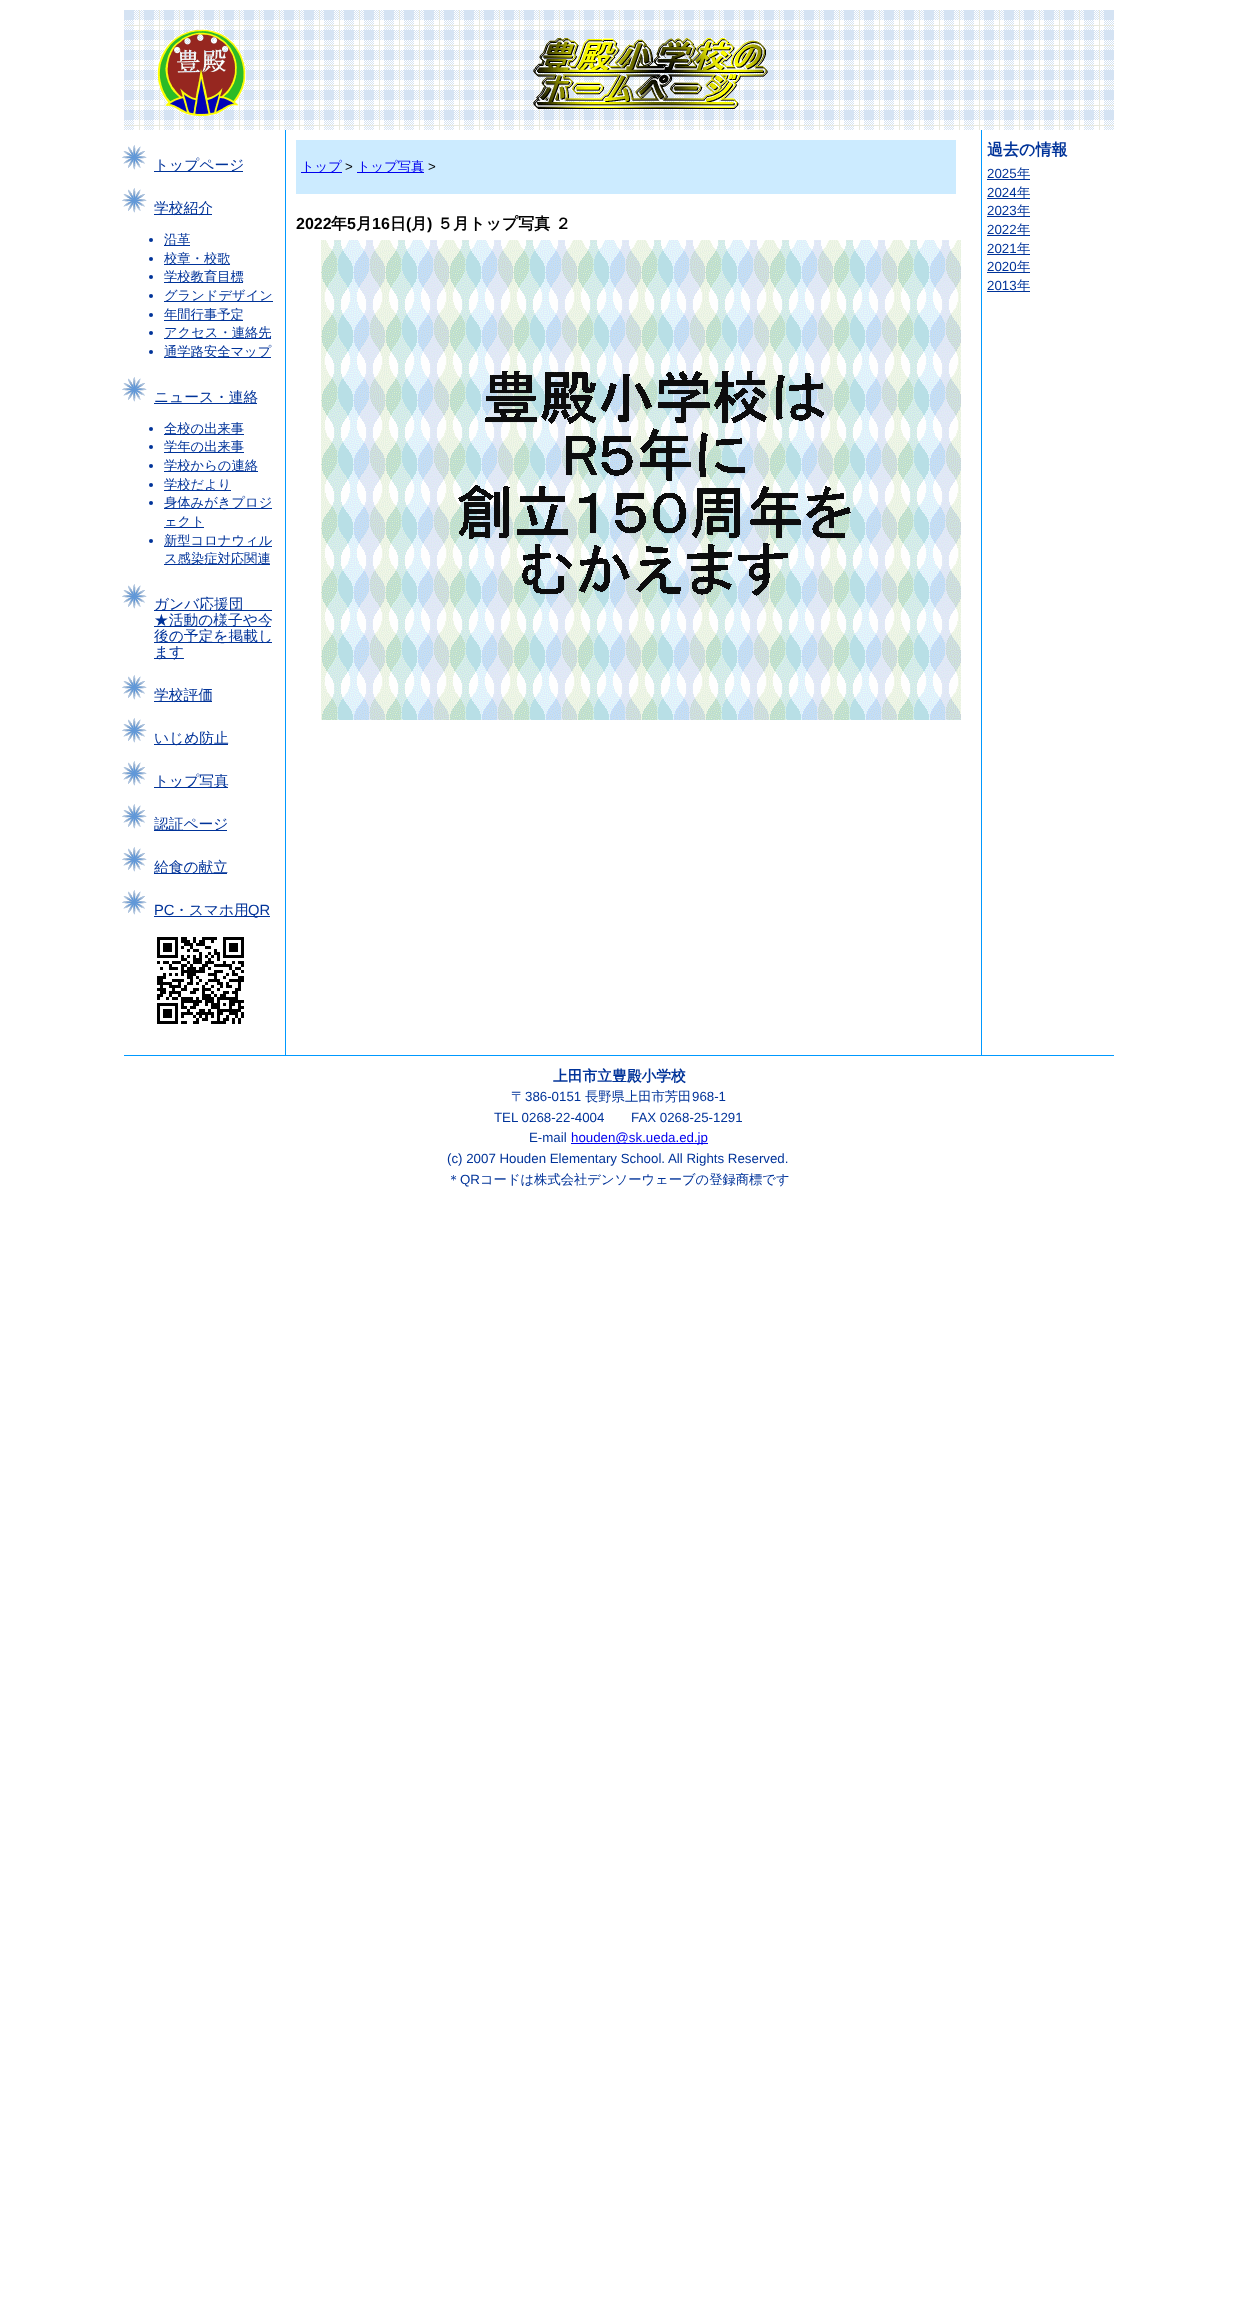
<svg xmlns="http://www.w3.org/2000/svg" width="1237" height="2317">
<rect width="100%" height="100%" fill="#fff"/>
<image x="124" y="10" width="990" height="120" href="media/1.png"/>
<image x="157" y="27" width="89" height="90" href="media/2.png"/>
<image x="533" y="38" width="235" height="71" href="media/3.png"/>
<image x="122" y="145" width="25" height="25" href="media/4.png"/>
<rect x="154" y="171" width="89" height="1" fill="#039"/>
<text x="154" y="170" style="font-family:WenQuanYi Zen Hei;font-size:14.75px;font-weight:500;fill:#039">トップページ</text>
<image x="122" y="188" width="25" height="25" href="media/4.png"/>
<rect x="154" y="214" width="58" height="1" fill="#039"/>
<text x="154" y="213" style="font-family:WenQuanYi Zen Hei;font-size:14.75px;font-weight:500;fill:#039">学校紹介</text>
<circle cx="151" cy="240" r="2" fill="#039"/>
<rect x="164" y="245" width="26" height="1" fill="#039"/>
<text x="164" y="244" style="font-family:WenQuanYi Zen Hei;font-size:13.3px;font-weight:500;fill:#039">沿革</text>
<circle cx="151" cy="259" r="2" fill="#039"/>
<rect x="164" y="264" width="66" height="1" fill="#039"/>
<text x="164" y="263" style="font-family:WenQuanYi Zen Hei;font-size:13.3px;font-weight:500;fill:#039">校章・校歌</text>
<circle cx="151" cy="277" r="2" fill="#039"/>
<rect x="164" y="282" width="79" height="1" fill="#039"/>
<text x="164" y="281" style="font-family:WenQuanYi Zen Hei;font-size:13.3px;font-weight:500;fill:#039">学校教育目標</text>
<circle cx="151" cy="296" r="2" fill="#039"/>
<rect x="164" y="301" width="109" height="1" fill="#039"/>
<text x="164" y="300" style="font-family:WenQuanYi Zen Hei;font-size:13.3px;font-weight:500;fill:#039">グランドデザイン</text>
<circle cx="151" cy="315" r="2" fill="#039"/>
<rect x="164" y="320" width="79" height="1" fill="#039"/>
<text x="164" y="319" style="font-family:WenQuanYi Zen Hei;font-size:13.3px;font-weight:500;fill:#039">年間行事予定</text>
<circle cx="151" cy="333" r="2" fill="#039"/>
<rect x="164" y="338" width="107" height="1" fill="#039"/>
<text x="164" y="337" style="font-family:WenQuanYi Zen Hei;font-size:13.3px;font-weight:500;fill:#039">アクセス・連絡先</text>
<circle cx="151" cy="352" r="2" fill="#039"/>
<rect x="164" y="357" width="107" height="1" fill="#039"/>
<text x="164" y="356" style="font-family:WenQuanYi Zen Hei;font-size:13.3px;font-weight:500;fill:#039">通学路安全マップ</text>
<image x="122" y="377" width="25" height="25" href="media/4.png"/>
<rect x="154" y="403" width="103" height="1" fill="#039"/>
<text x="154" y="402" style="font-family:WenQuanYi Zen Hei;font-size:14.75px;font-weight:500;fill:#039">ニュース・連絡</text>
<circle cx="151" cy="429" r="2" fill="#039"/>
<rect x="164" y="434" width="80" height="1" fill="#039"/>
<text x="164" y="433" style="font-family:WenQuanYi Zen Hei;font-size:13.3px;font-weight:500;fill:#039">全校の出来事</text>
<circle cx="151" cy="447" r="2" fill="#039"/>
<rect x="164" y="452" width="80" height="1" fill="#039"/>
<text x="164" y="451" style="font-family:WenQuanYi Zen Hei;font-size:13.3px;font-weight:500;fill:#039">学年の出来事</text>
<circle cx="151" cy="466" r="2" fill="#039"/>
<rect x="164" y="471" width="94" height="1" fill="#039"/>
<text x="164" y="470" style="font-family:WenQuanYi Zen Hei;font-size:13.3px;font-weight:500;fill:#039">学校からの連絡</text>
<circle cx="151" cy="485" r="2" fill="#039"/>
<rect x="164" y="490" width="67" height="1" fill="#039"/>
<text x="164" y="489" style="font-family:WenQuanYi Zen Hei;font-size:13.3px;font-weight:500;fill:#039">学校だより</text>
<circle cx="151" cy="503" r="2" fill="#039"/>
<rect x="164" y="508" width="108" height="1" fill="#039"/>
<text x="164" y="507" style="font-family:WenQuanYi Zen Hei;font-size:13.3px;font-weight:500;fill:#039">身体みがきプロジ</text>
<rect x="164" y="527" width="40" height="1" fill="#039"/>
<text x="164" y="526" style="font-family:WenQuanYi Zen Hei;font-size:13.3px;font-weight:500;fill:#039">ェクト</text>
<circle cx="151" cy="541" r="2" fill="#039"/>
<rect x="164" y="546" width="108" height="1" fill="#039"/>
<text x="164" y="545" style="font-family:WenQuanYi Zen Hei;font-size:13.3px;font-weight:500;fill:#039">新型コロナウィル</text>
<rect x="164" y="564" width="106" height="1" fill="#039"/>
<text x="164" y="563" style="font-family:WenQuanYi Zen Hei;font-size:13.3px;font-weight:500;fill:#039">ス感染症対応関連</text>
<image x="122" y="584" width="25" height="25" href="media/4.png"/>
<rect x="154" y="610" width="118" height="1" fill="#039"/>
<text x="154" y="609" style="font-family:WenQuanYi Zen Hei;font-size:14.75px;font-weight:500;fill:#039">ガンバ応援団</text>
<rect x="154" y="626" width="117" height="1" fill="#039"/>
<text x="154" y="625" style="font-family:WenQuanYi Zen Hei;font-size:14.75px;font-weight:500;fill:#039">★活動の様子や今</text>
<rect x="154" y="642" width="118" height="1" fill="#039"/>
<text x="154" y="641" style="font-family:WenQuanYi Zen Hei;font-size:14.75px;font-weight:500;fill:#039">後の予定を掲載し</text>
<rect x="154" y="658" width="30" height="1" fill="#039"/>
<text x="154" y="657" style="font-family:WenQuanYi Zen Hei;font-size:14.75px;font-weight:500;fill:#039">ます</text>
<image x="122" y="675" width="25" height="25" href="media/4.png"/>
<rect x="154" y="701" width="58" height="1" fill="#039"/>
<text x="154" y="700" style="font-family:WenQuanYi Zen Hei;font-size:14.75px;font-weight:500;fill:#039">学校評価</text>
<image x="122" y="718" width="25" height="25" href="media/4.png"/>
<rect x="154" y="744" width="74" height="1" fill="#039"/>
<text x="154" y="743" style="font-family:WenQuanYi Zen Hei;font-size:14.75px;font-weight:500;fill:#039">いじめ防止</text>
<image x="122" y="761" width="25" height="25" href="media/4.png"/>
<rect x="154" y="787" width="74" height="1" fill="#039"/>
<text x="154" y="786" style="font-family:WenQuanYi Zen Hei;font-size:14.75px;font-weight:500;fill:#039">トップ写真</text>
<image x="122" y="804" width="25" height="25" href="media/4.png"/>
<rect x="154" y="830" width="73" height="1" fill="#039"/>
<text x="154" y="829" style="font-family:WenQuanYi Zen Hei;font-size:14.75px;font-weight:500;fill:#039">認証ページ</text>
<image x="122" y="847" width="25" height="25" href="media/4.png"/>
<rect x="154" y="873" width="73" height="1" fill="#039"/>
<text x="154" y="872" style="font-family:WenQuanYi Zen Hei;font-size:14.75px;font-weight:500;fill:#039">給食の献立</text>
<image x="122" y="890" width="25" height="25" href="media/4.png"/>
<text x="154" y="915" style="font-family:Liberation Sans;font-size:14.75px;fill:#039">PC</text>
<rect x="154" y="916" width="116" height="1" fill="#039"/>
<text x="174" y="915" style="font-family:WenQuanYi Zen Hei;font-size:14.75px;font-weight:500;fill:#039">・スマホ用</text>
<text x="248" y="915" style="font-family:Liberation Sans;font-size:14.75px;fill:#039">QR</text>
<image x="157" y="937" width="87" height="87" href="media/5.png"/>
<rect x="981" y="130" width="1" height="925" fill="#09f"/>
<rect x="285" y="130" width="1" height="925" fill="#09f"/>
<rect x="296" y="140" width="660" height="54" fill="#ccebff"/>
<rect x="301" y="172" width="41" height="1" fill="#00e"/>
<text x="301" y="171" style="font-family:WenQuanYi Zen Hei;font-size:13.3px;font-weight:500;fill:#00e">トップ</text>
<text x="345" y="171" style="font-family:Liberation Sans;font-size:13.3px;fill:#000">&gt;</text>
<rect x="357" y="172" width="67" height="1" fill="#00e"/>
<text x="357" y="171" style="font-family:WenQuanYi Zen Hei;font-size:13.3px;font-weight:500;fill:#00e">トップ写真</text>
<text x="428" y="171" style="font-family:Liberation Sans;font-size:13.3px;fill:#000">&gt;</text>
<text x="296" y="229" style="font-family:Liberation Sans;font-size:16px;font-weight:bold;fill:#000">2022</text>
<text x="331" y="229" style="font-family:WenQuanYi Zen Hei;font-size:16px;font-weight:bold;fill:#000">年</text>
<text x="347" y="229" style="font-family:Liberation Sans;font-size:16px;font-weight:bold;fill:#000">5</text>
<text x="356" y="229" style="font-family:WenQuanYi Zen Hei;font-size:16px;font-weight:bold;fill:#000">月</text>
<text x="372" y="229" style="font-family:Liberation Sans;font-size:16px;font-weight:bold;fill:#000">16</text>
<text x="390" y="229" style="font-family:WenQuanYi Zen Hei;font-size:16px;font-weight:bold;fill:#000">日</text>
<text x="406" y="229" style="font-family:Liberation Sans;font-size:16px;font-weight:bold;fill:#000">(</text>
<text x="411" y="229" style="font-family:WenQuanYi Zen Hei;font-size:16px;font-weight:bold;fill:#000">月</text>
<text x="427" y="229" style="font-family:Liberation Sans;font-size:16px;font-weight:bold;fill:#000">)</text>
<text x="437" y="229" style="font-family:WenQuanYi Zen Hei;font-size:16px;font-weight:bold;fill:#000">５月トップ写真 ２</text>
<image x="321" y="240" width="640" height="480" href="media/6.png"/>
<text x="987" y="155" style="font-family:WenQuanYi Zen Hei;font-size:16px;font-weight:bold;fill:#039">過去の情報</text>
<text x="987" y="178" style="font-family:Liberation Sans;font-size:13.3px;fill:#039">2025</text>
<rect x="987" y="179" width="43" height="1" fill="#039"/>
<text x="1017" y="178" style="font-family:WenQuanYi Zen Hei;font-size:13.3px;font-weight:500;fill:#039">年</text>
<text x="987" y="197" style="font-family:Liberation Sans;font-size:13.3px;fill:#039">2024</text>
<rect x="987" y="198" width="43" height="1" fill="#039"/>
<text x="1017" y="197" style="font-family:WenQuanYi Zen Hei;font-size:13.3px;font-weight:500;fill:#039">年</text>
<text x="987" y="215" style="font-family:Liberation Sans;font-size:13.3px;fill:#039">2023</text>
<rect x="987" y="216" width="43" height="1" fill="#039"/>
<text x="1017" y="215" style="font-family:WenQuanYi Zen Hei;font-size:13.3px;font-weight:500;fill:#039">年</text>
<text x="987" y="234" style="font-family:Liberation Sans;font-size:13.3px;fill:#039">2022</text>
<rect x="987" y="235" width="43" height="1" fill="#039"/>
<text x="1017" y="234" style="font-family:WenQuanYi Zen Hei;font-size:13.3px;font-weight:500;fill:#039">年</text>
<text x="987" y="253" style="font-family:Liberation Sans;font-size:13.3px;fill:#039">2021</text>
<rect x="987" y="254" width="43" height="1" fill="#039"/>
<text x="1017" y="253" style="font-family:WenQuanYi Zen Hei;font-size:13.3px;font-weight:500;fill:#039">年</text>
<text x="987" y="271" style="font-family:Liberation Sans;font-size:13.3px;fill:#039">2020</text>
<rect x="987" y="272" width="43" height="1" fill="#039"/>
<text x="1017" y="271" style="font-family:WenQuanYi Zen Hei;font-size:13.3px;font-weight:500;fill:#039">年</text>
<text x="987" y="290" style="font-family:Liberation Sans;font-size:13.3px;fill:#039">2013</text>
<rect x="987" y="291" width="43" height="1" fill="#039"/>
<text x="1017" y="290" style="font-family:WenQuanYi Zen Hei;font-size:13.3px;font-weight:500;fill:#039">年</text>
<rect x="124" y="1055" width="990" height="1" fill="#09f"/>
<text x="553" y="1081" style="font-family:WenQuanYi Zen Hei;font-size:14.75px;font-weight:bold;fill:#039">上田市立豊殿小学校</text>
<text x="511" y="1101" style="font-family:WenQuanYi Zen Hei;font-size:13.3px;font-weight:500;fill:#039">〒</text>
<text x="525" y="1101" style="font-family:Liberation Sans;font-size:13.3px;fill:#039">386-0151</text>
<text x="585" y="1101" style="font-family:WenQuanYi Zen Hei;font-size:13.3px;font-weight:500;fill:#039">長野県上田市芳田</text>
<text x="692" y="1101" style="font-family:Liberation Sans;font-size:13.3px;fill:#039">968-1</text>
<text x="494" y="1122" style="font-family:Liberation Sans;font-size:13.3px;fill:#039">TEL 0268-22-4004</text>
<text x="631" y="1122" style="font-family:Liberation Sans;font-size:13.3px;fill:#039">FAX 0268-25-1291</text>
<text x="529" y="1142" style="font-family:Liberation Sans;font-size:13.3px;fill:#039">E-mail</text>
<rect x="571" y="1143" width="137" height="1" fill="#00e"/>
<text x="571" y="1142" style="font-family:Liberation Sans;font-size:13.3px;fill:#00e">houden@sk.ueda.ed.jp</text>
<text x="447" y="1163" style="font-family:Liberation Sans;font-size:13.3px;fill:#039">(c) 2007 Houden Elementary School. All Rights Reserved.</text>
<text x="447" y="1184" style="font-family:WenQuanYi Zen Hei;font-size:13.3px;font-weight:500;fill:#039">＊</text>
<text x="460" y="1184" style="font-family:Liberation Sans;font-size:13.3px;fill:#039">QR</text>
<text x="480" y="1184" style="font-family:WenQuanYi Zen Hei;font-size:13.3px;font-weight:500;fill:#039">コードは株式会社デンソーウェーブの登録商標です</text>
</svg>
